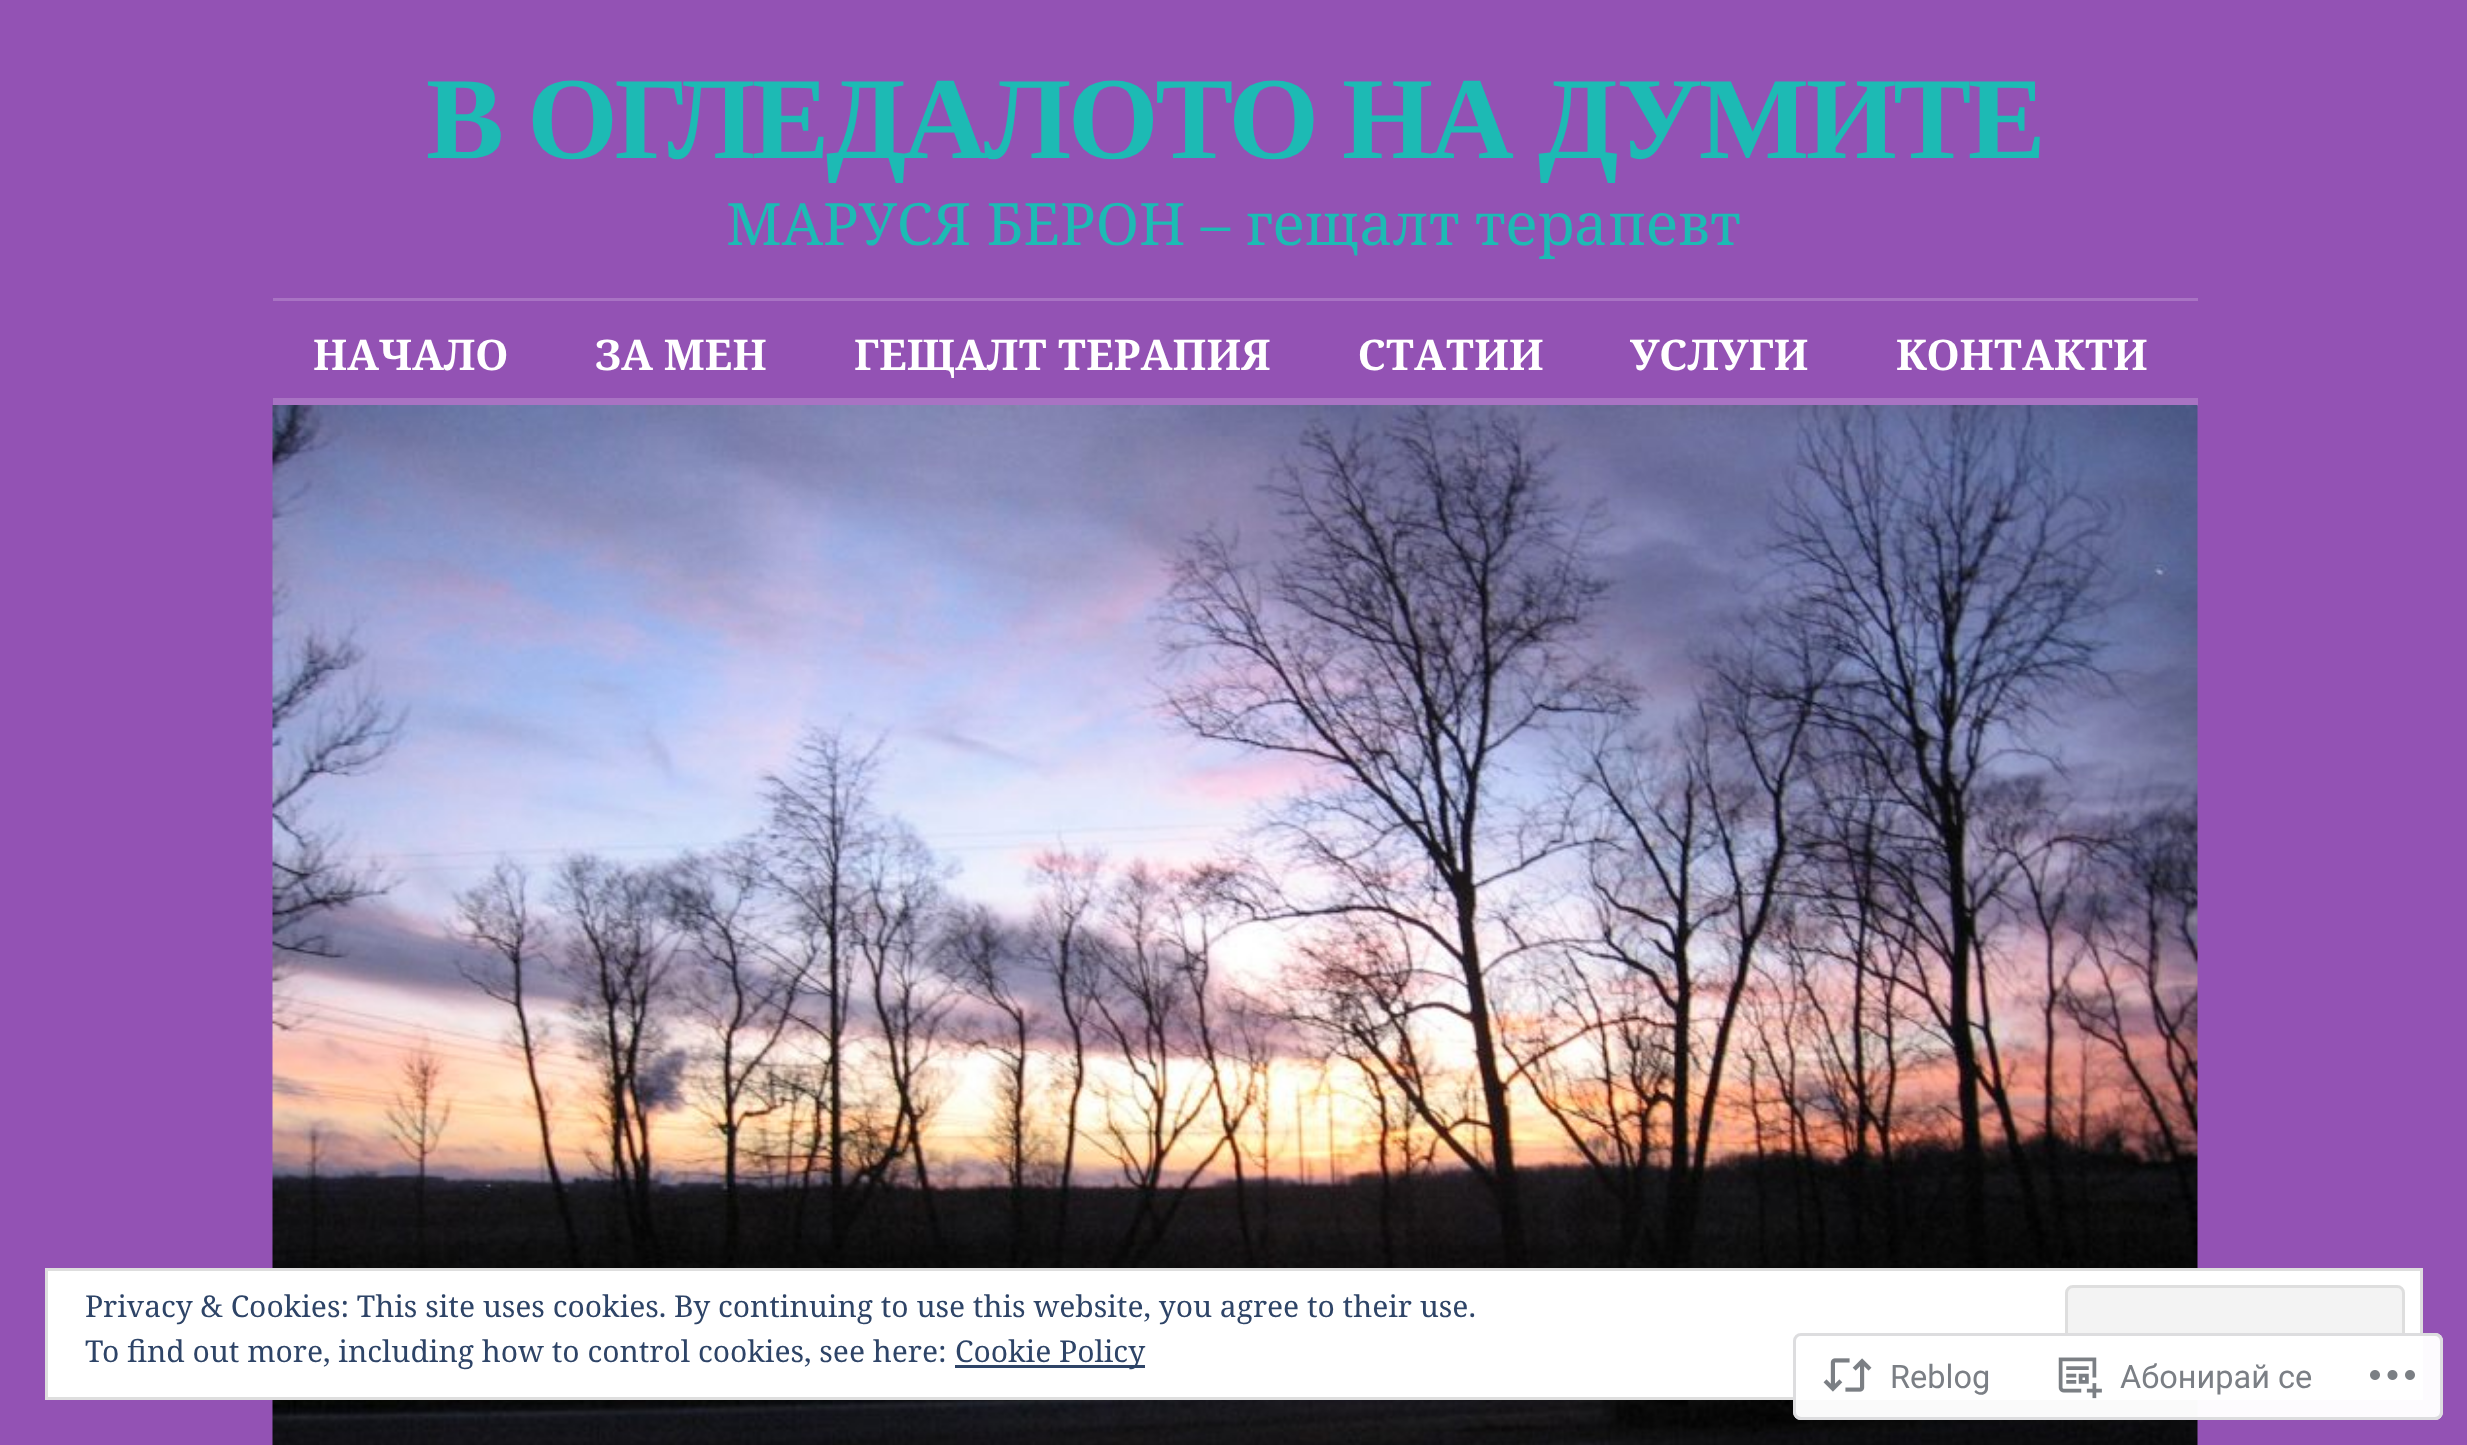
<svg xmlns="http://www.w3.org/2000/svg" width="2467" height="1445">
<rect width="100%" height="100%" fill="#9352b4"/>
<text x="426" y="158" style="font-family:Liberation Serif;font-size:117px;font-weight:bold;letter-spacing:-3.5px;fill:#1dbab4">В</text>
<text x="527" y="158" style="font-family:Liberation Serif;font-size:117px;font-weight:bold;letter-spacing:-3.5px;fill:#1dbab4">ОГЛЕДАЛОТО</text>
<text x="1342" y="158" style="font-family:Liberation Serif;font-size:117px;font-weight:bold;letter-spacing:-3.5px;fill:#1dbab4">НА</text>
<text x="1538" y="158" style="font-family:Liberation Serif;font-size:117px;font-weight:bold;letter-spacing:-3.5px;fill:#1dbab4">ДУМИТЕ</text>
<text x="726" y="245" style="font-family:Noto Serif;font-size:58.5px;fill:#1dbab4">МАРУСЯ БЕРОН – гещалт терапевт</text>
<rect x="273" y="298" width="1925" height="3" fill="#a873c3"/>
<text x="313" y="370" style="font-family:Noto Serif;font-size:42.25px;font-weight:bold;fill:#fff">НАЧАЛО</text>
<text x="595" y="370" style="font-family:Noto Serif;font-size:42.25px;font-weight:bold;fill:#fff">ЗА МЕН</text>
<text x="854" y="370" style="font-family:Noto Serif;font-size:42.25px;font-weight:bold;fill:#fff">ГЕЩАЛТ ТЕРАПИЯ</text>
<text x="1358" y="370" style="font-family:Noto Serif;font-size:42.25px;font-weight:bold;fill:#fff">СТАТИИ</text>
<text x="1630" y="370" style="font-family:Noto Serif;font-size:42.25px;font-weight:bold;fill:#fff">УСЛУГИ</text>
<text x="1896" y="370" style="font-family:Noto Serif;font-size:42.25px;font-weight:bold;fill:#fff">КОНТАКТИ</text>
<rect x="273" y="398" width="1925" height="8" fill="#a873c3"/>
<image x="272" y="405" width="1926" height="1040" href="media/1.png"/>
<rect x="46.5" y="1269.5" width="2375" height="129" fill="#fff" stroke="#dedede" stroke-width="3"/>
<text x="85" y="1317" style="font-family:Noto Serif;font-size:30px;fill:#2e4467">Privacy &amp; Cookies: This site uses cookies. By continuing to use this website, you agree to their use.</text>
<rect x="2066.5" y="1286.5" width="337" height="95" rx="6.5" fill="#f3f3f3" stroke="#dedede" stroke-width="3"/>
<text x="85" y="1362" style="font-family:Noto Serif;font-size:30px;fill:#2e4467">To find out more, including how to control cookies, see here:</text>
<rect x="955" y="1365" width="190" height="3" fill="#2e4467"/>
<text x="955" y="1362" style="font-family:Noto Serif;font-size:30px;fill:#2e4467">Cookie Policy</text>
<rect x="1793" y="1333" width="650" height="87" rx="8" fill="#fffffffa"/>
<rect x="1794.5" y="1334.5" width="647" height="84" rx="6.5" fill="none" stroke="#dcdcdefa" stroke-width="3"/>
<image x="1823" y="1358" width="49" height="34" href="media/2.png"/>
<text x="1890" y="1388" style="font-family:Roboto;font-size:32.5px;fill:#7b7f85">Reblog</text>
<image x="2058" y="1357" width="44" height="42" href="media/3.png"/>
<text x="2120" y="1388" style="font-family:Roboto;font-size:32.5px;fill:#7b7f85">Абонирай се</text>
<image x="2370" y="1370" width="45" height="10" href="media/4.png"/>
</svg>
